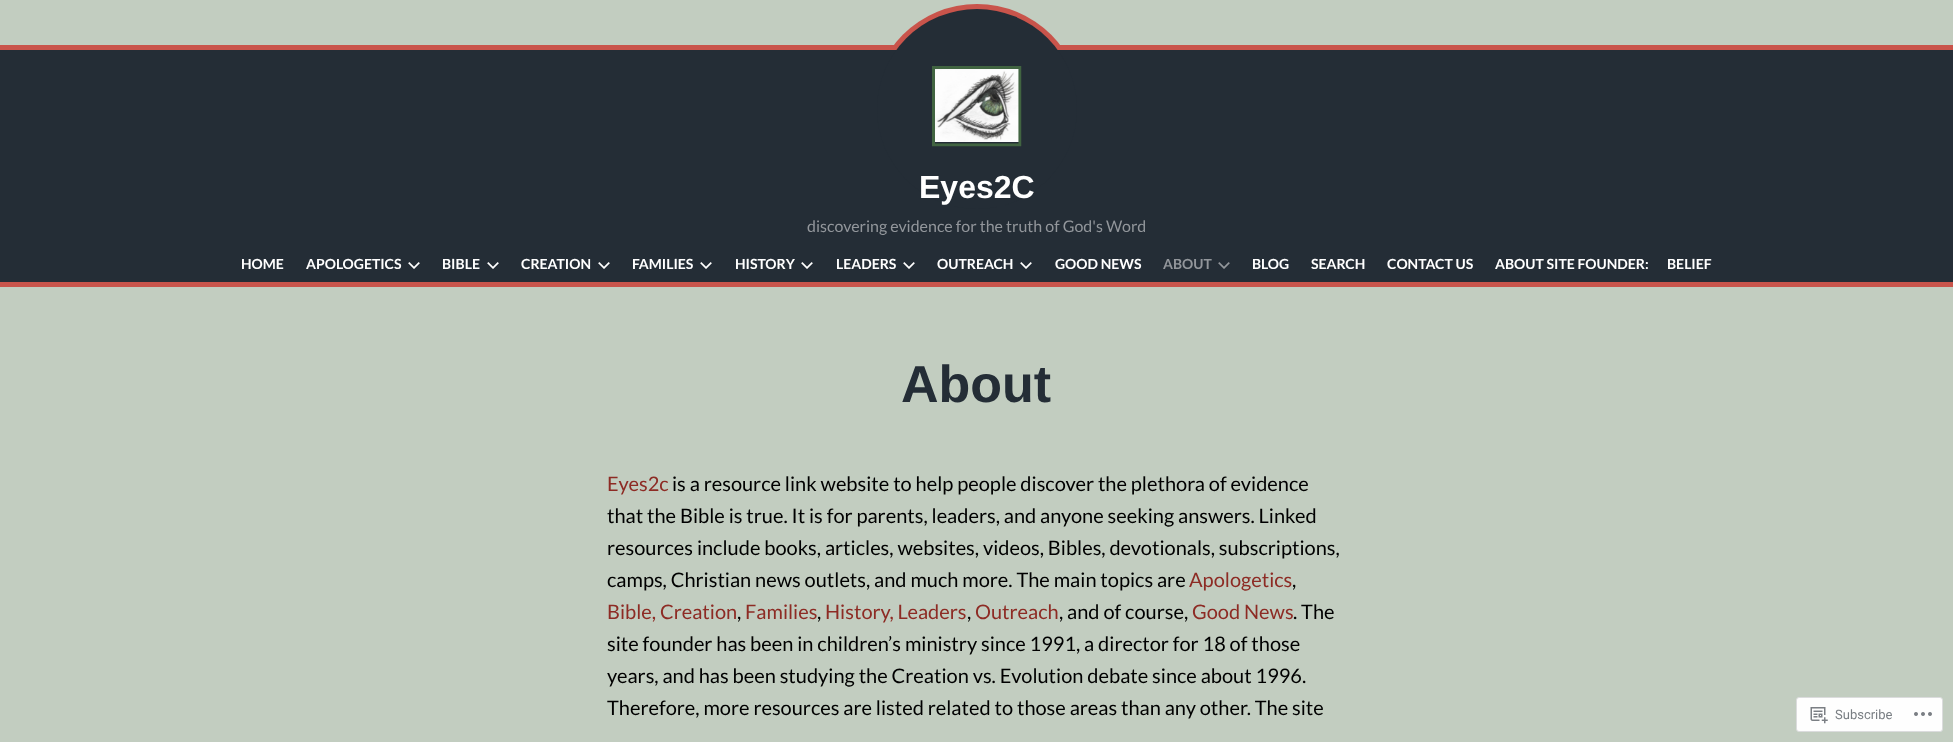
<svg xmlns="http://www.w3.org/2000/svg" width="1953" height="742">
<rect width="100%" height="100%" fill="#c2cdc0"/>
<circle cx="977" cy="109" r="105" fill="#c9544b"/>
<rect y="50" width="1953" height="232" fill="#242d36"/>
<rect y="45" width="1953" height="5" fill="#c9544b"/>
<rect y="282" width="1953" height="5" fill="#c9544b"/>
<circle cx="977" cy="109" r="100" fill="#242d36"/>
<image x="932" y="66" width="90" height="81" href="media/1.png"/>
<text x="919" y="198" style="font-family:Liberation Sans;font-size:32px;font-weight:bold;fill:#fff">Eyes2C</text>
<text x="807" y="232" style="font-family:Lato;font-size:16px;fill:#92969b">discovering evidence for the truth of God's Word</text>
<text x="241" y="269" style="font-family:Lato;font-size:14px;font-weight:bold;fill:#fff">HOME</text>
<text x="306" y="269" style="font-family:Lato;font-size:14px;font-weight:bold;fill:#fff">APOLOGETICS</text>
<image x="408" y="262" width="12" height="7" href="media/2.png"/>
<text x="442" y="269" style="font-family:Lato;font-size:14px;font-weight:bold;fill:#fff">BIBLE</text>
<image x="487" y="262" width="12" height="7" href="media/2.png"/>
<text x="521" y="269" style="font-family:Lato;font-size:14px;font-weight:bold;fill:#fff">CREATION</text>
<image x="598" y="262" width="12" height="7" href="media/2.png"/>
<text x="632" y="269" style="font-family:Lato;font-size:14px;font-weight:bold;fill:#fff">FAMILIES</text>
<image x="700" y="262" width="12" height="7" href="media/2.png"/>
<text x="735" y="269" style="font-family:Lato;font-size:14px;font-weight:bold;fill:#fff">HISTORY</text>
<image x="801" y="262" width="12" height="7" href="media/2.png"/>
<text x="836" y="269" style="font-family:Lato;font-size:14px;font-weight:bold;fill:#fff">LEADERS</text>
<image x="903" y="262" width="12" height="7" href="media/2.png"/>
<text x="937" y="269" style="font-family:Lato;font-size:14px;font-weight:bold;fill:#fff">OUTREACH</text>
<image x="1020" y="262" width="12" height="7" href="media/2.png"/>
<text x="1055" y="269" style="font-family:Lato;font-size:14px;font-weight:bold;fill:#fff">GOOD NEWS</text>
<text x="1163" y="269" style="font-family:Lato;font-size:14px;font-weight:bold;fill:#92969b">ABOUT</text>
<image x="1218" y="262" width="12" height="7" href="media/3.png"/>
<text x="1252" y="269" style="font-family:Lato;font-size:14px;font-weight:bold;fill:#fff">BLOG</text>
<text x="1311" y="269" style="font-family:Lato;font-size:14px;font-weight:bold;fill:#fff">SEARCH</text>
<text x="1387" y="269" style="font-family:Lato;font-size:14px;font-weight:bold;fill:#fff">CONTACT US</text>
<text x="1495" y="269" style="font-family:Lato;font-size:14px;font-weight:bold;fill:#fff">ABOUT SITE FOUNDER:</text>
<text x="1667" y="269" style="font-family:Lato;font-size:14px;font-weight:bold;fill:#fff">BELIEF</text>
<text x="901" y="402" style="font-family:Liberation Sans;font-size:52px;font-weight:bold;fill:#242d36">About</text>
<text x="607" y="491" style="font-family:Lato;font-size:20px;fill:#8d2b24">Eyes2c</text>
<text x="672" y="491" style="font-family:Lato;font-size:20px;fill:#000">is a resource link website to help people discover the plethora of evidence</text>
<text x="607" y="523" style="font-family:Lato;font-size:20px;fill:#000">that the Bible is true. It is for parents, leaders, and anyone seeking answers. Linked</text>
<text x="607" y="555" style="font-family:Lato;font-size:20px;fill:#000">resources include books, articles, websites, videos, Bibles, devotionals, subscriptions,</text>
<text x="607" y="587" style="font-family:Lato;font-size:20px;fill:#000">camps, Christian news outlets, and much more. The main topics are</text>
<text x="1189" y="587" style="font-family:Lato;font-size:20px;fill:#8d2b24">Apologetics</text>
<text x="1292" y="587" style="font-family:Lato;font-size:20px;fill:#000">,</text>
<text x="607" y="619" style="font-family:Lato;font-size:20px;fill:#8d2b24">Bible, Creation</text>
<text x="737" y="619" style="font-family:Lato;font-size:20px;fill:#000">,</text>
<text x="745" y="619" style="font-family:Lato;font-size:20px;fill:#8d2b24">Families</text>
<text x="817" y="619" style="font-family:Lato;font-size:20px;fill:#000">,</text>
<text x="825" y="619" style="font-family:Lato;font-size:20px;fill:#8d2b24">History, Leaders</text>
<text x="967" y="619" style="font-family:Lato;font-size:20px;fill:#000">,</text>
<text x="975" y="619" style="font-family:Lato;font-size:20px;fill:#8d2b24">Outreach</text>
<text x="1059" y="619" style="font-family:Lato;font-size:20px;fill:#000">, and of course,</text>
<text x="1192" y="619" style="font-family:Lato;font-size:20px;fill:#8d2b24">Good News</text>
<text x="1293" y="619" style="font-family:Lato;font-size:20px;fill:#000">. The</text>
<text x="607" y="651" style="font-family:Lato;font-size:20px;fill:#000">site founder has been in children’s ministry since 1991, a director for 18 of those</text>
<text x="607" y="683" style="font-family:Lato;font-size:20px;fill:#000">years, and has been studying the Creation vs. Evolution debate since about 1996.</text>
<text x="607" y="715" style="font-family:Lato;font-size:20px;fill:#000">Therefore, more resources are listed related to those areas than any other. The site</text>
<rect x="1796.5" y="697.5" width="146" height="34" rx="2.5" fill="#fefefe" stroke="#dbdcdd"/>
<image x="1810" y="707" width="18" height="17" href="media/4.png"/>
<text x="1835" y="719" style="font-family:Roboto;font-size:13px;fill:#797e83">Subscribe</text>
<image x="1914" y="712" width="18" height="4" href="media/5.png"/>
</svg>
